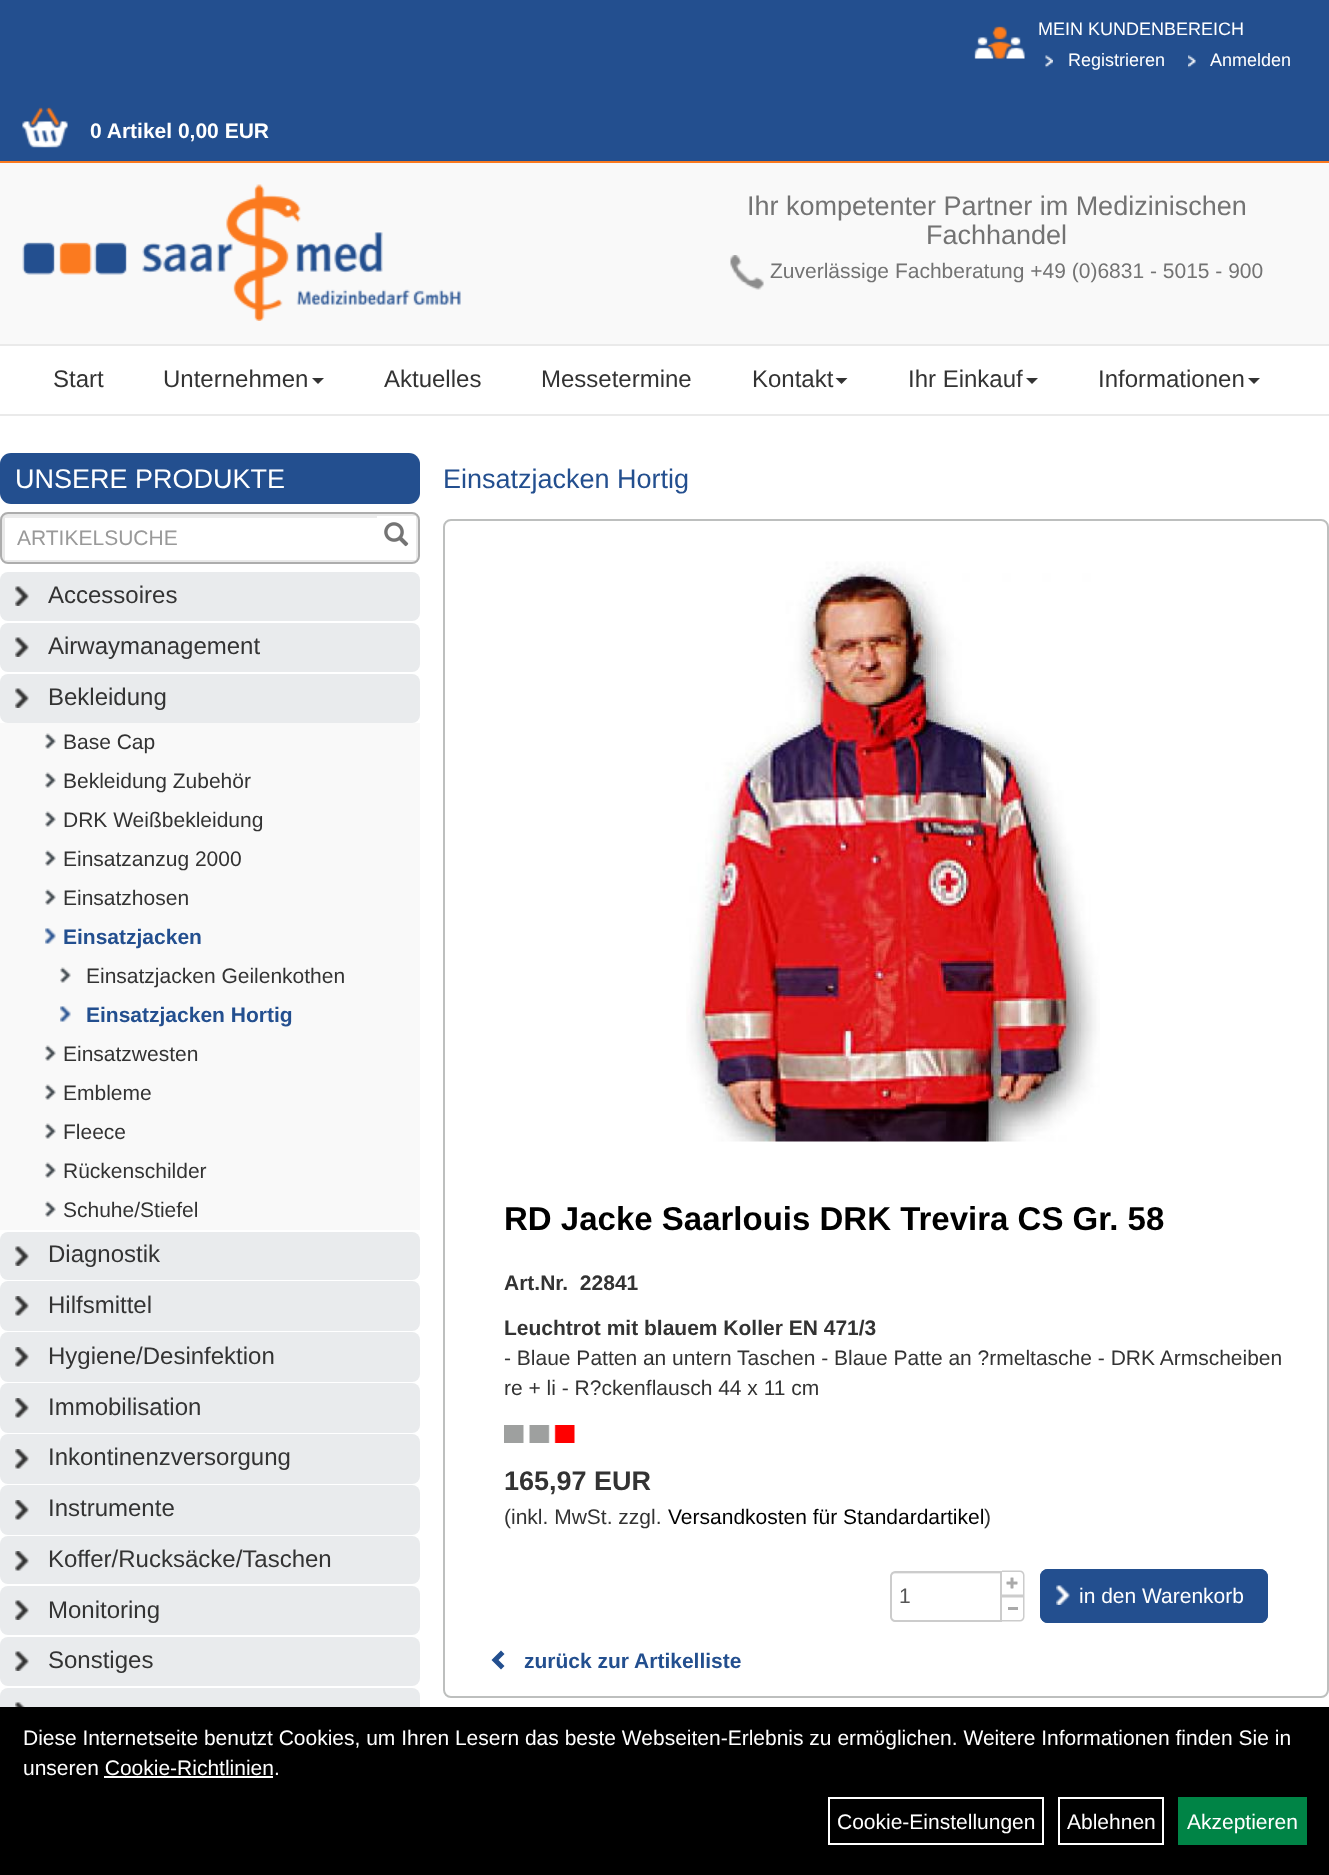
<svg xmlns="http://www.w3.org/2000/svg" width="1329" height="1875">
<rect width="100%" height="100%" fill="#fff"/>
<rect width="1329" height="161" fill="#234f8f"/>
<rect y="161" width="1329" height="2" fill="#fb7a1f"/>
<image x="974" y="26" width="51" height="33" href="media/1.png"/>
<text x="1038" y="35" style="font-family:Liberation Sans;font-size:18px;fill:#fff">MEIN KUNDENBEREICH</text>
<image x="1045" y="55" width="8" height="13" href="media/2.png"/>
<text x="1068" y="66" style="font-family:Liberation Sans;font-size:18px;fill:#fff">Registrieren</text>
<image x="1188" y="55" width="8" height="13" href="media/3.png"/>
<text x="1210" y="66" style="font-family:Liberation Sans;font-size:18px;fill:#fff">Anmelden</text>
<image x="22" y="107" width="46" height="41" href="media/4.png"/>
<text x="90" y="138" style="font-family:Liberation Sans;font-size:21px;font-weight:bold;fill:#fff">0 Artikel 0,00 EUR</text>
<rect y="163" width="1329" height="181" fill="#f9f9f9"/>
<image x="22" y="184" width="439" height="137" href="media/5.png"/>
<text x="747" y="215" style="font-family:Liberation Sans;font-size:27px;fill:#737373">Ihr kompetenter Partner im Medizinischen</text>
<text x="926" y="244" style="font-family:Liberation Sans;font-size:27px;fill:#737373">Fachhandel</text>
<image x="730" y="255" width="34" height="35" href="media/6.png"/>
<text x="770" y="278" style="font-family:Liberation Sans;font-size:21px;fill:#737373">Zuverlässige Fachberatung +49 (0)6831 - 5015 - 900</text>
<rect y="344" width="1329" height="2" fill="#eaeaea"/>
<rect y="414" width="1329" height="2" fill="#eaeaea"/>
<text x="53" y="387" style="font-family:Liberation Sans;font-size:24px;fill:#333">Start</text>
<text x="163" y="387" style="font-family:Liberation Sans;font-size:24px;fill:#333">Unternehmen</text>
<path d="M312 378h12l-6 6z" fill="#333"/>
<text x="384" y="387" style="font-family:Liberation Sans;font-size:24px;fill:#333">Aktuelles</text>
<text x="541" y="387" style="font-family:Liberation Sans;font-size:24px;fill:#333">Messetermine</text>
<text x="752" y="387" style="font-family:Liberation Sans;font-size:24px;fill:#333">Kontakt</text>
<path d="M835.5 378h12l-6 6z" fill="#333"/>
<text x="908" y="387" style="font-family:Liberation Sans;font-size:24px;fill:#333">Ihr Einkauf</text>
<path d="M1026 378h12l-6 6z" fill="#333"/>
<text x="1098" y="387" style="font-family:Liberation Sans;font-size:24px;fill:#333">Informationen</text>
<path d="M1248 378h12l-6 6z" fill="#333"/>
<rect y="453" width="420" height="51" rx="11" fill="#234f8f"/>
<text x="15" y="488" style="font-family:Liberation Sans;font-size:27px;fill:#fff">UNSERE PRODUKTE</text>
<rect x="1" y="513" width="418" height="50" rx="7" fill="#e9e9e9" stroke="#adadad" stroke-width="2"/>
<rect x="5" y="518" width="372" height="42" fill="#fff"/>
<rect x="5" y="516" width="372" height="2" fill="#ececec"/>
<text x="17" y="545" style="font-family:Liberation Sans;font-size:21px;fill:#999">ARTIKELSUCHE</text>
<rect x="377" y="516" width="39" height="44" fill="#fff"/>
<image x="384" y="522" width="25" height="25" href="media/7.png"/>
<rect y="572" width="420" height="49" rx="8" fill="#e9ebed"/>
<image x="15" y="586" width="14" height="20" href="media/8.png"/>
<text x="48" y="603" style="font-family:Liberation Sans;font-size:24px;fill:#333">Accessoires</text>
<rect y="623" width="420" height="49" rx="8" fill="#e9ebed"/>
<image x="15" y="637" width="14" height="20" href="media/8.png"/>
<text x="48" y="654" style="font-family:Liberation Sans;font-size:24px;fill:#333">Airwaymanagement</text>
<rect y="674" width="420" height="49" rx="8" fill="#e9ebed"/>
<image x="15" y="688" width="14" height="20" href="media/8.png"/>
<text x="48" y="705" style="font-family:Liberation Sans;font-size:24px;fill:#333">Bekleidung</text>
<rect y="723" width="420" height="507" fill="#f9f9f9"/>
<image x="45" y="733" width="11" height="16" href="media/9.png"/>
<text x="63" y="749" style="font-family:Liberation Sans;font-size:21px;fill:#333">Base Cap</text>
<image x="45" y="772" width="11" height="16" href="media/9.png"/>
<text x="63" y="788" style="font-family:Liberation Sans;font-size:21px;fill:#333">Bekleidung Zubehör</text>
<image x="45" y="811" width="11" height="16" href="media/9.png"/>
<text x="63" y="827" style="font-family:Liberation Sans;font-size:21px;fill:#333">DRK Weißbekleidung</text>
<image x="45" y="850" width="11" height="16" href="media/9.png"/>
<text x="63" y="866" style="font-family:Liberation Sans;font-size:21px;fill:#333">Einsatzanzug 2000</text>
<image x="45" y="889" width="11" height="16" href="media/9.png"/>
<text x="63" y="905" style="font-family:Liberation Sans;font-size:21px;fill:#333">Einsatzhosen</text>
<image x="45" y="928" width="11" height="16" href="media/10.png"/>
<text x="63" y="944" style="font-family:Liberation Sans;font-size:21px;font-weight:bold;fill:#234f8f">Einsatzjacken</text>
<image x="60" y="967" width="11" height="16" href="media/9.png"/>
<text x="86" y="983" style="font-family:Liberation Sans;font-size:21px;fill:#333">Einsatzjacken Geilenkothen</text>
<image x="60" y="1006" width="11" height="16" href="media/10.png"/>
<text x="86" y="1022" style="font-family:Liberation Sans;font-size:21px;font-weight:bold;fill:#234f8f">Einsatzjacken Hortig</text>
<image x="45" y="1045" width="11" height="16" href="media/9.png"/>
<text x="63" y="1061" style="font-family:Liberation Sans;font-size:21px;fill:#333">Einsatzwesten</text>
<image x="45" y="1084" width="11" height="16" href="media/9.png"/>
<text x="63" y="1100" style="font-family:Liberation Sans;font-size:21px;fill:#333">Embleme</text>
<image x="45" y="1123" width="11" height="16" href="media/9.png"/>
<text x="63" y="1139" style="font-family:Liberation Sans;font-size:21px;fill:#333">Fleece</text>
<image x="45" y="1162" width="11" height="16" href="media/9.png"/>
<text x="63" y="1178" style="font-family:Liberation Sans;font-size:21px;fill:#333">Rückenschilder</text>
<image x="45" y="1201" width="11" height="16" href="media/9.png"/>
<text x="63" y="1217" style="font-family:Liberation Sans;font-size:21px;fill:#333">Schuhe/Stiefel</text>
<rect y="1232" width="420" height="48" rx="8" fill="#e9ebed"/>
<image x="15" y="1246" width="14" height="20" href="media/8.png"/>
<text x="48" y="1262" style="font-family:Liberation Sans;font-size:24px;fill:#333">Diagnostik</text>
<rect y="1281" width="420" height="50" rx="8" fill="#e9ebed"/>
<image x="15" y="1296" width="14" height="20" href="media/11.png"/>
<text x="48" y="1313" style="font-family:Liberation Sans;font-size:24px;fill:#333">Hilfsmittel</text>
<rect y="1332" width="420" height="50" rx="8" fill="#e9ebed"/>
<image x="15" y="1347" width="14" height="20" href="media/11.png"/>
<text x="48" y="1364" style="font-family:Liberation Sans;font-size:24px;fill:#333">Hygiene/Desinfektion</text>
<rect y="1383" width="420" height="50" rx="8" fill="#e9ebed"/>
<image x="15" y="1398" width="14" height="20" href="media/11.png"/>
<text x="48" y="1415" style="font-family:Liberation Sans;font-size:24px;fill:#333">Immobilisation</text>
<rect y="1434" width="420" height="50" rx="8" fill="#e9ebed"/>
<image x="15" y="1449" width="14" height="20" href="media/11.png"/>
<text x="48" y="1465" style="font-family:Liberation Sans;font-size:24px;fill:#333">Inkontinenzversorgung</text>
<rect y="1485" width="420" height="50" rx="8" fill="#e9ebed"/>
<image x="15" y="1500" width="14" height="20" href="media/11.png"/>
<text x="48" y="1516" style="font-family:Liberation Sans;font-size:24px;fill:#333">Instrumente</text>
<rect y="1536" width="420" height="48" rx="8" fill="#e9ebed"/>
<image x="15" y="1551" width="14" height="20" href="media/11.png"/>
<text x="48" y="1567" style="font-family:Liberation Sans;font-size:24px;fill:#333">Koffer/Rucksäcke/Taschen</text>
<rect y="1586" width="420" height="49" rx="8" fill="#e9ebed"/>
<image x="15" y="1600" width="14" height="20" href="media/8.png"/>
<text x="48" y="1618" style="font-family:Liberation Sans;font-size:24px;fill:#333">Monitoring</text>
<rect y="1637" width="420" height="49" rx="8" fill="#e9ebed"/>
<image x="15" y="1651" width="14" height="20" href="media/8.png"/>
<text x="48" y="1668" style="font-family:Liberation Sans;font-size:24px;fill:#333">Sonstiges</text>
<rect y="1688" width="420" height="49" rx="8" fill="#e9ebed"/>
<image x="15" y="1702" width="10" height="5" href="media/12.png"/>
<text x="443" y="488" style="font-family:Liberation Sans;font-size:27px;fill:#234f8f">Einsatzjacken Hortig</text>
<rect x="444" y="520" width="884" height="1177" rx="7" fill="none" stroke="#bdbfbe" stroke-width="2"/>
<image x="686" y="561" width="414" height="581" href="media/13.png"/>
<text x="504" y="1230" style="font-family:Liberation Sans;font-size:33px;font-weight:bold;fill:#000">RD Jacke Saarlouis DRK Trevira CS Gr. 58</text>
<text x="504" y="1290" style="font-family:Liberation Sans;font-size:21px;font-weight:bold;fill:#333" xml:space="preserve">Art.Nr.  22841</text>
<text x="504" y="1335" style="font-family:Liberation Sans;font-size:21px;font-weight:bold;fill:#333">Leuchtrot mit blauem Koller EN 471/3</text>
<text x="504" y="1365" style="font-family:Liberation Sans;font-size:21px;fill:#333">- Blaue Patten an untern Taschen - Blaue Patte an ?rmeltasche - DRK Armscheiben</text>
<text x="504" y="1395" style="font-family:Liberation Sans;font-size:21px;fill:#333">re + li - R?ckenflausch 44 x 11 cm</text>
<image x="504" y="1425" width="71" height="18" href="media/14.png"/>
<text x="504" y="1490" style="font-family:Liberation Sans;font-size:27px;font-weight:bold;fill:#333">165,97 EUR</text>
<text x="504" y="1524" style="font-family:Liberation Sans;font-size:21px;fill:#333">(inkl. MwSt. zzgl.</text>
<text x="668" y="1524" style="font-family:Liberation Sans;font-size:21px;fill:#000">Versandkosten für Standardartikel</text>
<text x="984" y="1524" style="font-family:Liberation Sans;font-size:21px;fill:#333">)</text>
<path d="M894 1574h106v46h1v-48h-107c-2 0-3 1-3 3v1c0-1 1-2 3-2z" fill="#ececec"/>
<path d="M895 1572h106v49h-106c-2 0-4-2-4-4v-41c0-2 2-4 4-4z" fill="none" stroke="#ccc" stroke-width="2"/>
<text x="899" y="1603" style="font-family:Liberation Sans;font-size:21px;fill:#555">1</text>
<path d="M1002 1570.5h18c2.5 0 4.5 2 4.5 4.5v21h-22.5zm0 1.5h18c1.5 0 3 1.5 3 3v19.5h-21zm0 24h22.5v21c0 2.5-2 4.5-4.5 4.5h-18zm0 1.5h21v19.5c0 1.5-1.5 3-3 3h-18z" fill="#ccc" fill-rule="evenodd"/>
<image x="1006" y="1577" width="12" height="12" href="media/15.png"/>
<rect x="1008" y="1607" width="10" height="3" fill="#aaa"/>
<rect x="1040" y="1569" width="228" height="54" rx="8" fill="#234f8f"/>
<image x="1056" y="1585" width="14" height="20" href="media/16.png"/>
<rect x="1041" y="1570" width="226" height="52" rx="7" fill="none" stroke="#234f8f" stroke-width="2"/>
<text x="1079" y="1603" style="font-family:Liberation Sans;font-size:21px;fill:#fff">in den Warenkorb</text>
<path d="M504.5 1654l-6 6l6 6l-3.5 3.5l-9.5-9.5l9.5-9.5z" fill="#234f8f"/>
<text x="524" y="1668" style="font-family:Liberation Sans;font-size:21px;font-weight:bold;fill:#234f8f">zurück zur Artikelliste</text>
<rect y="1707" width="1329" height="168" fill="#000"/>
<text x="23" y="1745" style="font-family:Liberation Sans;font-size:21px;fill:#fff">Diese Internetseite benutzt Cookies, um Ihren Lesern das beste Webseiten-Erlebnis zu ermöglichen. Weitere Informationen finden Sie in</text>
<text x="23" y="1775" style="font-family:Liberation Sans;font-size:21px;fill:#fff">unseren Cookie-Richtlinien.</text>
<rect x="104" y="1776" width="169" height="2" fill="#fff"/>
<rect x="829" y="1798" width="214" height="46" fill="none" stroke="#fff" stroke-width="2"/>
<text x="837" y="1829" style="font-family:Liberation Sans;font-size:21px;fill:#fff">Cookie-Einstellungen</text>
<rect x="1059" y="1798" width="104" height="46" fill="none" stroke="#fff" stroke-width="2"/>
<text x="1067" y="1829" style="font-family:Liberation Sans;font-size:21px;fill:#fff">Ablehnen</text>
<rect x="1178" y="1797" width="129" height="48" fill="#008446"/>
<text x="1187" y="1829" style="font-family:Liberation Sans;font-size:21px;fill:#fff">Akzeptieren</text>
</svg>
